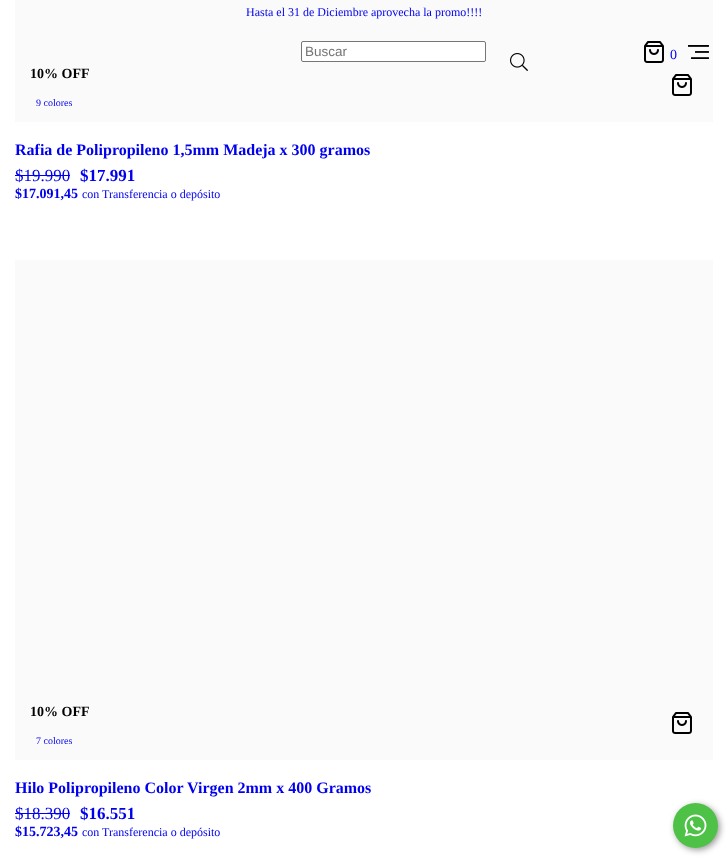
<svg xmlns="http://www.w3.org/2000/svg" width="728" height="858">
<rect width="100%" height="100%" fill="#fff"/>
<rect x="15" width="698" height="122" fill="#fafafa"/>
<text x="246" y="16" style="font-family:Liberation Serif;font-size:12px;fill:#00e">Hasta el 31 de Diciembre aprovecha la promo!!!!</text>
<rect x="301.5" y="41.5" width="184" height="20" rx="1.5" fill="#fff" stroke="#767676"/>
<text x="305" y="56" style="font-family:Liberation Sans;font-size:13.5px;fill:#757575">Buscar</text>
<image x="510" y="53" width="18" height="18" href="media/1.png"/>
<image x="644" y="41" width="20" height="22" href="media/2.png"/>
<text x="670" y="59" style="font-family:Liberation Serif;font-size:14px;fill:#00e">0</text>
<image x="688" y="45" width="21" height="14" href="media/3.png"/>
<text x="30" y="78" style="font-family:Liberation Serif;font-size:14px;font-weight:bold;fill:#000">10% OFF</text>
<image x="672" y="74" width="20" height="22" href="media/2.png"/>
<text x="36" y="106" style="font-family:Liberation Serif;font-size:10px;fill:#00e">9 colores</text>
<text x="15" y="155" style="font-family:Liberation Serif;font-size:16px;font-weight:bold;fill:#00e">Rafia de Polipropileno 1,5mm Madeja x 300 gramos</text>
<text x="15" y="181" style="font-family:Liberation Serif;font-size:17px;fill:#00e">$19.990</text>
<rect x="15" y="175" width="55" height="1" fill="#00e"/>
<text x="80" y="181" style="font-family:Liberation Serif;font-size:17px;font-weight:bold;fill:#00e">$17.991</text>
<text x="15" y="198" style="font-family:Liberation Serif;font-size:14px;font-weight:bold;fill:#00e">$17.091,45</text>
<text x="82" y="198" style="font-family:Liberation Serif;font-size:12px;fill:#00e">con Transferencia o depósito</text>
<rect x="15" y="260" width="698" height="500" fill="#fafafa"/>
<text x="30" y="716" style="font-family:Liberation Serif;font-size:14px;font-weight:bold;fill:#000">10% OFF</text>
<image x="672" y="712" width="20" height="22" href="media/2.png"/>
<text x="36" y="744" style="font-family:Liberation Serif;font-size:10px;fill:#00e">7 colores</text>
<text x="15" y="793" style="font-family:Liberation Serif;font-size:16px;font-weight:bold;fill:#00e">Hilo Polipropileno Color Virgen 2mm x 400 Gramos</text>
<text x="15" y="819" style="font-family:Liberation Serif;font-size:17px;fill:#00e">$18.390</text>
<rect x="15" y="813" width="55" height="1" fill="#00e"/>
<text x="80" y="819" style="font-family:Liberation Serif;font-size:17px;font-weight:bold;fill:#00e">$16.551</text>
<text x="15" y="836" style="font-family:Liberation Serif;font-size:14px;font-weight:bold;fill:#00e">$15.723,45</text>
<text x="82" y="836" style="font-family:Liberation Serif;font-size:12px;fill:#00e">con Transferencia o depósito</text>
<rect x="675" y="805" width="45" height="45" rx="22.5" fill="#00000066" filter="blur(3px)"/>
<circle cx="695.5" cy="825.5" r="22.5" fill="#4dc247"/>
<image x="684" y="814" width="23" height="23" href="media/4.png"/>
</svg>
